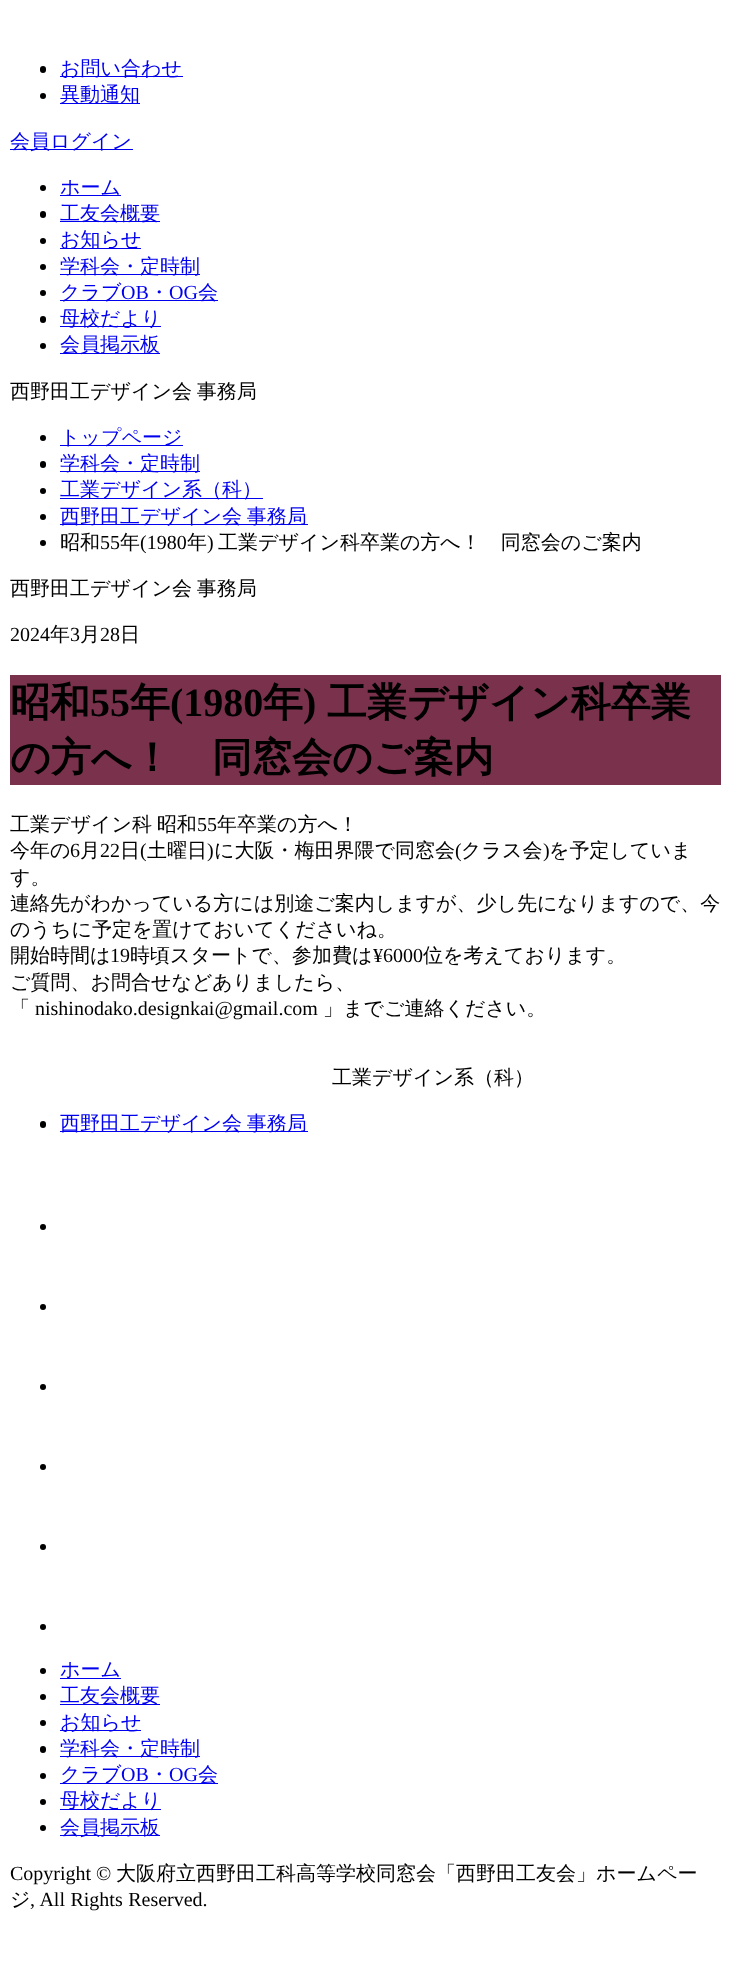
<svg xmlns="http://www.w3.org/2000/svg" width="731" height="1988">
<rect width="100%" height="100%" fill="#fff"/>
<rect x="40" y="66" width="6" height="7" rx="3" fill="#000"/>
<rect x="60" y="76" width="123" height="1" fill="#00e"/>
<text x="60" y="75" style="font-family:WenQuanYi Zen Hei;font-size:20px;font-weight:500;fill:#00e">お問い合わせ</text>
<circle cx="43" cy="96" r="3" fill="#000"/>
<rect x="60" y="103" width="80" height="1" fill="#00e"/>
<text x="60" y="101" style="font-family:WenQuanYi Zen Hei;font-size:20px;font-weight:500;fill:#00e">異動通知</text>
<rect x="10" y="149" width="123" height="1" fill="#00e"/>
<text x="10" y="148" style="font-family:WenQuanYi Zen Hei;font-size:20px;font-weight:500;fill:#00e">会員ログイン</text>
<circle cx="43" cy="188" r="3" fill="#000"/>
<rect x="60" y="195" width="61" height="1" fill="#00e"/>
<text x="60" y="194" style="font-family:WenQuanYi Zen Hei;font-size:20px;font-weight:500;fill:#00e">ホーム</text>
<rect x="40" y="211" width="6" height="7" rx="3" fill="#000"/>
<rect x="60" y="221" width="100" height="1" fill="#00e"/>
<text x="60" y="220" style="font-family:WenQuanYi Zen Hei;font-size:20px;font-weight:500;fill:#00e">工友会概要</text>
<circle cx="43" cy="241" r="3" fill="#000"/>
<rect x="60" y="248" width="81" height="1" fill="#00e"/>
<text x="60" y="246" style="font-family:WenQuanYi Zen Hei;font-size:20px;font-weight:500;fill:#00e">お知らせ</text>
<circle cx="43" cy="267" r="3" fill="#000"/>
<rect x="60" y="274" width="140" height="1" fill="#00e"/>
<text x="60" y="273" style="font-family:WenQuanYi Zen Hei;font-size:20px;font-weight:500;fill:#00e">学科会・定時制</text>
<circle cx="43" cy="293" r="3" fill="#000"/>
<rect x="60" y="300" width="158" height="1" fill="#00e"/>
<text x="60" y="299" style="font-family:WenQuanYi Zen Hei;font-size:20px;font-weight:500;fill:#00e">クラブ</text>
<text x="121" y="299" style="font-family:Liberation Serif;font-size:20px;fill:#00e">OB</text>
<text x="149" y="299" style="font-family:WenQuanYi Zen Hei;font-size:20px;font-weight:500;fill:#00e">・</text>
<text x="169" y="299" style="font-family:Liberation Serif;font-size:20px;fill:#00e">OG</text>
<text x="198" y="299" style="font-family:WenQuanYi Zen Hei;font-size:20px;font-weight:500;fill:#00e">会</text>
<rect x="40" y="316" width="6" height="7" rx="3" fill="#000"/>
<rect x="60" y="326" width="101" height="1" fill="#00e"/>
<text x="60" y="325" style="font-family:WenQuanYi Zen Hei;font-size:20px;font-weight:500;fill:#00e">母校だより</text>
<circle cx="43" cy="346" r="3" fill="#000"/>
<rect x="60" y="353" width="100" height="1" fill="#00e"/>
<text x="60" y="351" style="font-family:WenQuanYi Zen Hei;font-size:20px;font-weight:500;fill:#00e">会員掲示板</text>
<text x="10" y="398" word-spacing="-1" style="font-family:WenQuanYi Zen Hei;font-size:20px;font-weight:500;fill:#000">西野田工デザイン会 事務局</text>
<circle cx="43" cy="438" r="3" fill="#000"/>
<rect x="60" y="445" width="123" height="1" fill="#00e"/>
<text x="60" y="444" style="font-family:WenQuanYi Zen Hei;font-size:20px;font-weight:500;fill:#00e">トップページ</text>
<rect x="40" y="461" width="6" height="7" rx="3" fill="#000"/>
<rect x="60" y="471" width="140" height="1" fill="#00e"/>
<text x="60" y="470" style="font-family:WenQuanYi Zen Hei;font-size:20px;font-weight:500;fill:#00e">学科会・定時制</text>
<circle cx="43" cy="491" r="3" fill="#000"/>
<rect x="60" y="498" width="203" height="1" fill="#00e"/>
<text x="60" y="496" style="font-family:WenQuanYi Zen Hei;font-size:20px;font-weight:500;fill:#00e">工業デザイン系（科）</text>
<circle cx="43" cy="517" r="3" fill="#000"/>
<rect x="60" y="524" width="248" height="1" fill="#00e"/>
<text x="60" y="523" word-spacing="-1" style="font-family:WenQuanYi Zen Hei;font-size:20px;font-weight:500;fill:#00e">西野田工デザイン会 事務局</text>
<circle cx="43" cy="543" r="3" fill="#000"/>
<text x="60" y="549" style="font-family:WenQuanYi Zen Hei;font-size:20px;font-weight:500;fill:#000">昭和</text>
<text x="100" y="549" style="font-family:Liberation Serif;font-size:20px;fill:#000">55</text>
<text x="120" y="549" style="font-family:WenQuanYi Zen Hei;font-size:20px;font-weight:500;fill:#000">年</text>
<text x="140" y="549" style="font-family:Liberation Serif;font-size:20px;fill:#000">(1980</text>
<text x="187" y="549" style="font-family:WenQuanYi Zen Hei;font-size:20px;font-weight:500;fill:#000">年</text>
<text x="207" y="549" style="font-family:Liberation Serif;font-size:20px;fill:#000">)</text>
<text x="218" y="549" style="font-family:WenQuanYi Zen Hei;font-size:20px;font-weight:500;fill:#000">工業デザイン科卒業の方へ！　同窓会のご案内</text>
<text x="10" y="595" word-spacing="-1" style="font-family:WenQuanYi Zen Hei;font-size:20px;font-weight:500;fill:#000">西野田工デザイン会 事務局</text>
<text x="10" y="641" style="font-family:Liberation Serif;font-size:20px;fill:#000">2024</text>
<text x="50" y="641" style="font-family:WenQuanYi Zen Hei;font-size:20px;font-weight:500;fill:#000">年</text>
<text x="70" y="641" style="font-family:Liberation Serif;font-size:20px;fill:#000">3</text>
<text x="80" y="641" style="font-family:WenQuanYi Zen Hei;font-size:20px;font-weight:500;fill:#000">月</text>
<text x="100" y="641" style="font-family:Liberation Serif;font-size:20px;fill:#000">28</text>
<text x="120" y="641" style="font-family:WenQuanYi Zen Hei;font-size:20px;font-weight:500;fill:#000">日</text>
<rect x="10" y="675" width="711" height="110" fill="#7a324c"/>
<text x="10" y="716" style="font-family:WenQuanYi Zen Hei;font-size:40px;font-weight:bold;fill:#000">昭和</text>
<text x="90" y="716" style="font-family:Liberation Serif;font-size:40px;font-weight:bold;fill:#000">55</text>
<text x="130" y="716" style="font-family:WenQuanYi Zen Hei;font-size:40px;font-weight:bold;fill:#000">年</text>
<text x="170" y="716" style="font-family:Liberation Serif;font-size:40px;font-weight:bold;fill:#000">(1980</text>
<text x="263" y="716" style="font-family:WenQuanYi Zen Hei;font-size:40px;font-weight:bold;fill:#000">年</text>
<text x="303" y="716" style="font-family:Liberation Serif;font-size:40px;font-weight:bold;fill:#000">)</text>
<text x="327" y="716" style="font-family:WenQuanYi Zen Hei;font-size:40px;font-weight:bold;fill:#000">工業デザイン科卒業</text>
<text x="10" y="771" style="font-family:WenQuanYi Zen Hei;font-size:40px;font-weight:bold;fill:#000">の方へ！　同窓会のご案内</text>
<text x="10" y="831" word-spacing="-1" style="font-family:WenQuanYi Zen Hei;font-size:20px;font-weight:500;fill:#000">工業デザイン科 昭和</text>
<text x="197" y="831" style="font-family:Liberation Serif;font-size:20px;fill:#000">55</text>
<text x="217" y="831" style="font-family:WenQuanYi Zen Hei;font-size:20px;font-weight:500;fill:#000">年卒業の方へ！</text>
<text x="10" y="857" style="font-family:WenQuanYi Zen Hei;font-size:20px;font-weight:500;fill:#000">今年の</text>
<text x="70" y="857" style="font-family:Liberation Serif;font-size:20px;fill:#000">6</text>
<text x="80" y="857" style="font-family:WenQuanYi Zen Hei;font-size:20px;font-weight:500;fill:#000">月</text>
<text x="100" y="857" style="font-family:Liberation Serif;font-size:20px;fill:#000">22</text>
<text x="120" y="857" style="font-family:WenQuanYi Zen Hei;font-size:20px;font-weight:500;fill:#000">日</text>
<text x="140" y="857" style="font-family:Liberation Serif;font-size:20px;fill:#000">(</text>
<text x="147" y="857" style="font-family:WenQuanYi Zen Hei;font-size:20px;font-weight:500;fill:#000">土曜日</text>
<text x="207" y="857" style="font-family:Liberation Serif;font-size:20px;fill:#000">)</text>
<text x="214" y="857" style="font-family:WenQuanYi Zen Hei;font-size:20px;font-weight:500;fill:#000">に大阪・梅田界隈で同窓会</text>
<text x="455" y="857" style="font-family:Liberation Serif;font-size:20px;fill:#000">(</text>
<text x="461" y="857" style="font-family:WenQuanYi Zen Hei;font-size:20px;font-weight:500;fill:#000">クラス会</text>
<text x="543" y="857" style="font-family:Liberation Serif;font-size:20px;fill:#000">)</text>
<text x="549" y="857" style="font-family:WenQuanYi Zen Hei;font-size:20px;font-weight:500;fill:#000">を予定していま</text>
<text x="10" y="884" style="font-family:WenQuanYi Zen Hei;font-size:20px;font-weight:500;fill:#000">す。</text>
<text x="10" y="910" style="font-family:WenQuanYi Zen Hei;font-size:20px;font-weight:500;fill:#000">連絡先がわかっている方には別途ご案内しますが、少し先になりますので、今</text>
<text x="10" y="936" style="font-family:WenQuanYi Zen Hei;font-size:20px;font-weight:500;fill:#000">のうちに予定を置けておいてくださいね。</text>
<text x="10" y="962" style="font-family:WenQuanYi Zen Hei;font-size:20px;font-weight:500;fill:#000">開始時間は</text>
<text x="110" y="962" style="font-family:Liberation Serif;font-size:20px;fill:#000">19</text>
<text x="130" y="962" style="font-family:WenQuanYi Zen Hei;font-size:20px;font-weight:500;fill:#000">時頃スタートで、参加費は</text>
<text x="373" y="962" style="font-family:Liberation Serif;font-size:20px;fill:#000">¥6000</text>
<text x="423" y="962" style="font-family:WenQuanYi Zen Hei;font-size:20px;font-weight:500;fill:#000">位を考えております。</text>
<text x="10" y="989" style="font-family:WenQuanYi Zen Hei;font-size:20px;font-weight:500;fill:#000">ご質問、お問合せなどありましたら、</text>
<text x="10" y="1015" style="font-family:WenQuanYi Zen Hei;font-size:20px;font-weight:500;fill:#000">「</text>
<text x="35" y="1015" style="font-family:Liberation Serif;font-size:20px;fill:#000">nishinodako.designkai@gmail.com</text>
<text x="323" y="1015" style="font-family:WenQuanYi Zen Hei;font-size:20px;font-weight:500;fill:#000">」までご連絡ください。</text>
<text x="332" y="1084" style="font-family:WenQuanYi Zen Hei;font-size:20px;font-weight:500;fill:#000">工業デザイン系（科）</text>
<rect x="40" y="1121" width="6" height="7" rx="3" fill="#000"/>
<rect x="60" y="1131" width="248" height="1" fill="#00e"/>
<text x="60" y="1130" word-spacing="-1" style="font-family:WenQuanYi Zen Hei;font-size:20px;font-weight:500;fill:#00e">西野田工デザイン会 事務局</text>
<circle cx="43" cy="1227" r="3" fill="#000"/>
<circle cx="43" cy="1307" r="3" fill="#000"/>
<circle cx="43" cy="1387" r="3" fill="#000"/>
<circle cx="43" cy="1467" r="3" fill="#000"/>
<circle cx="43" cy="1547" r="3" fill="#000"/>
<circle cx="43" cy="1627" r="3" fill="#000"/>
<circle cx="43" cy="1671" r="3" fill="#000"/>
<rect x="60" y="1678" width="61" height="1" fill="#00e"/>
<text x="60" y="1676" style="font-family:WenQuanYi Zen Hei;font-size:20px;font-weight:500;fill:#00e">ホーム</text>
<circle cx="43" cy="1697" r="3" fill="#000"/>
<rect x="60" y="1704" width="100" height="1" fill="#00e"/>
<text x="60" y="1702" style="font-family:WenQuanYi Zen Hei;font-size:20px;font-weight:500;fill:#00e">工友会概要</text>
<circle cx="43" cy="1723" r="3" fill="#000"/>
<rect x="60" y="1730" width="81" height="1" fill="#00e"/>
<text x="60" y="1729" style="font-family:WenQuanYi Zen Hei;font-size:20px;font-weight:500;fill:#00e">お知らせ</text>
<rect x="40" y="1746" width="6" height="7" rx="3" fill="#000"/>
<rect x="60" y="1756" width="140" height="1" fill="#00e"/>
<text x="60" y="1755" style="font-family:WenQuanYi Zen Hei;font-size:20px;font-weight:500;fill:#00e">学科会・定時制</text>
<circle cx="43" cy="1776" r="3" fill="#000"/>
<rect x="60" y="1783" width="158" height="1" fill="#00e"/>
<text x="60" y="1781" style="font-family:WenQuanYi Zen Hei;font-size:20px;font-weight:500;fill:#00e">クラブ</text>
<text x="121" y="1781" style="font-family:Liberation Serif;font-size:20px;fill:#00e">OB</text>
<text x="149" y="1781" style="font-family:WenQuanYi Zen Hei;font-size:20px;font-weight:500;fill:#00e">・</text>
<text x="169" y="1781" style="font-family:Liberation Serif;font-size:20px;fill:#00e">OG</text>
<text x="198" y="1781" style="font-family:WenQuanYi Zen Hei;font-size:20px;font-weight:500;fill:#00e">会</text>
<circle cx="43" cy="1802" r="3" fill="#000"/>
<rect x="60" y="1809" width="101" height="1" fill="#00e"/>
<text x="60" y="1807" style="font-family:WenQuanYi Zen Hei;font-size:20px;font-weight:500;fill:#00e">母校だより</text>
<circle cx="43" cy="1828" r="3" fill="#000"/>
<rect x="60" y="1835" width="100" height="1" fill="#00e"/>
<text x="60" y="1834" style="font-family:WenQuanYi Zen Hei;font-size:20px;font-weight:500;fill:#00e">会員掲示板</text>
<text x="10" y="1880" style="font-family:Liberation Serif;font-size:20px;fill:#000">Copyright ©</text>
<text x="116" y="1880" style="font-family:WenQuanYi Zen Hei;font-size:20px;font-weight:500;fill:#000">大阪府立西野田工科高等学校同窓会「西野田工友会」ホームペー</text>
<text x="10" y="1906" style="font-family:WenQuanYi Zen Hei;font-size:20px;font-weight:500;fill:#000">ジ</text>
<text x="30" y="1906" word-spacing="0.5" style="font-family:Liberation Serif;font-size:20px;fill:#000">, All Rights Reserved.</text>
</svg>
